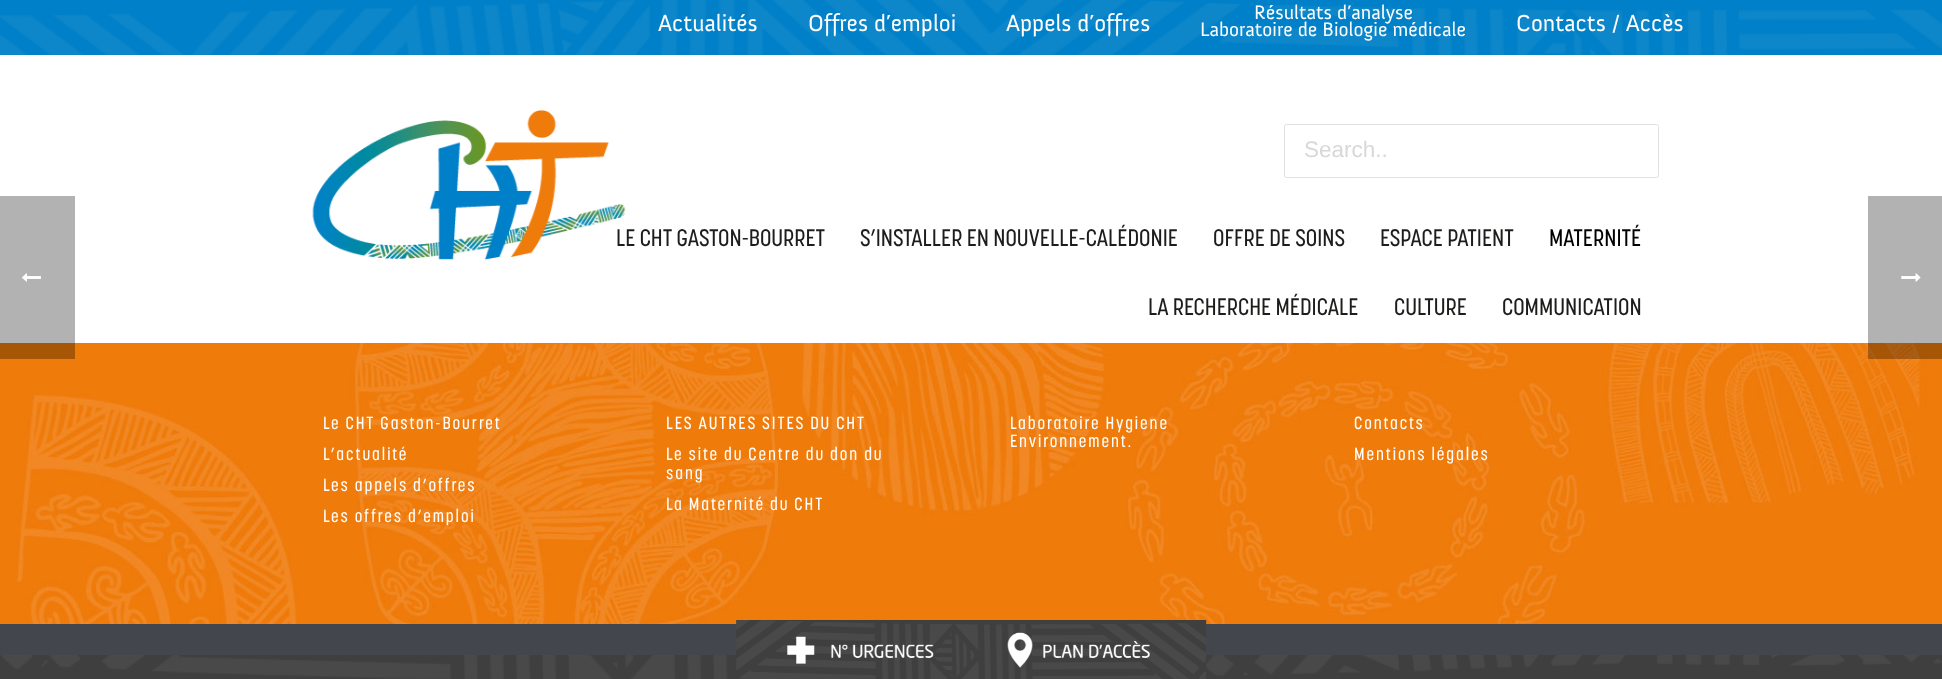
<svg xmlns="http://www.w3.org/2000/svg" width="1942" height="679">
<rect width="100%" height="100%" fill="#fff"/>
<rect width="1942" height="55" fill="#0080c8"/>
<image x="0" y="0" width="1942" height="55" href="media/1.png"/>
<text x="658" y="31" style="font-family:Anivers;font-size:23.75px;fill:#fff">Actualités</text>
<text x="808" y="31" style="font-family:Anivers;font-size:23.75px;fill:#fff">Offres d’emploi</text>
<text x="1006" y="31" style="font-family:Anivers;font-size:23.75px;fill:#fff">Appels d’offres</text>
<text x="1254" y="19" style="font-family:Anivers;font-size:20px;fill:#fff">Résultats d’analyse</text>
<text x="1200" y="36" style="font-family:Anivers;font-size:20px;fill:#fff">Laboratoire de Biologie médicale</text>
<text x="1516" y="31" style="font-family:Anivers;font-size:23.75px;fill:#fff">Contacts / Accès</text>
<image x="312" y="110" width="314" height="150" href="media/2.png"/>
<rect x="1284.5" y="124.5" width="374" height="53" rx="2" fill="none" stroke="#e0e0df"/>
<text x="1304" y="157" style="font-family:Liberation Sans;font-size:22.5px;fill:#d8d8d8">Search..</text>
<text x="616" y="246" style="font-family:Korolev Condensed;font-size:23.75px;font-weight:500;fill:#1d1d1b">LE CHT GASTON-BOURRET</text>
<text x="860" y="246" style="font-family:Korolev Condensed;font-size:23.75px;font-weight:500;fill:#1d1d1b">S’INSTALLER EN NOUVELLE-CALÉDONIE</text>
<text x="1213" y="246" style="font-family:Korolev Condensed;font-size:23.75px;font-weight:500;fill:#1d1d1b">OFFRE DE SOINS</text>
<text x="1380" y="246" style="font-family:Korolev Condensed;font-size:23.75px;font-weight:500;fill:#1d1d1b">ESPACE PATIENT</text>
<text x="1549" y="246" style="font-family:Korolev Condensed;font-size:23.75px;font-weight:500;fill:#000">MATERNITÉ</text>
<text x="1148" y="315" style="font-family:Korolev Condensed;font-size:23.75px;font-weight:500;fill:#1d1d1b">LA RECHERCHE MÉDICALE</text>
<text x="1394" y="315" style="font-family:Korolev Condensed;font-size:23.75px;font-weight:500;fill:#1d1d1b">CULTURE</text>
<text x="1502" y="315" style="font-family:Korolev Condensed;font-size:23.75px;font-weight:500;fill:#1d1d1b">COMMUNICATION</text>
<image x="0" y="343" width="1942" height="281" href="media/3.png"/>
<text x="323" y="429" style="font-family:Korolev Condensed;font-size:17.5px;font-weight:500;letter-spacing:1.9px;fill:#fff">Le CHT Gaston-Bourret</text>
<text x="323" y="460" style="font-family:Korolev Condensed;font-size:17.5px;font-weight:500;letter-spacing:1.9px;fill:#fff">L’actualité</text>
<text x="323" y="491" style="font-family:Korolev Condensed;font-size:17.5px;font-weight:500;letter-spacing:1.9px;fill:#fff">Les appels d’offres</text>
<text x="323" y="522" style="font-family:Korolev Condensed;font-size:17.5px;font-weight:500;letter-spacing:1.9px;fill:#fff">Les offres d’emploi</text>
<text x="666" y="429" style="font-family:Korolev Condensed;font-size:17.5px;font-weight:500;letter-spacing:1.9px;fill:#fff">LES AUTRES SITES DU CHT</text>
<text x="666" y="460" style="font-family:Korolev Condensed;font-size:17.5px;font-weight:500;letter-spacing:1.9px;fill:#fff">Le site du Centre du don du</text>
<text x="666" y="479" style="font-family:Korolev Condensed;font-size:17.5px;font-weight:500;letter-spacing:1.9px;fill:#fff">sang</text>
<text x="666" y="510" style="font-family:Korolev Condensed;font-size:17.5px;font-weight:500;letter-spacing:1.9px;fill:#fff">La Maternité du CHT</text>
<text x="1010" y="429" style="font-family:Korolev Condensed;font-size:17.5px;font-weight:500;letter-spacing:1.9px;fill:#fff">Laboratoire Hygiene</text>
<text x="1010" y="447" style="font-family:Korolev Condensed;font-size:17.5px;font-weight:500;letter-spacing:1.9px;fill:#fff">Environnement.</text>
<text x="1354" y="429" style="font-family:Korolev Condensed;font-size:17.5px;font-weight:500;letter-spacing:1.9px;fill:#fff">Contacts</text>
<text x="1354" y="460" style="font-family:Korolev Condensed;font-size:17.5px;font-weight:500;letter-spacing:1.9px;fill:#fff">Mentions légales</text>
<rect y="624" width="1942" height="31" fill="#43474d"/>
<rect y="196" width="75" height="163" fill="#0000004d"/>
<image x="22" y="273" width="19" height="9" href="media/4.png"/>
<rect x="1868" y="196" width="74" height="163" fill="#0000004d"/>
<image x="1901" y="273" width="20" height="9" href="media/5.png"/>
<image x="0" y="655" width="1942" height="24" href="media/6.png"/>
<image x="736" y="620" width="471" height="59" href="media/7.png"/>
</svg>
